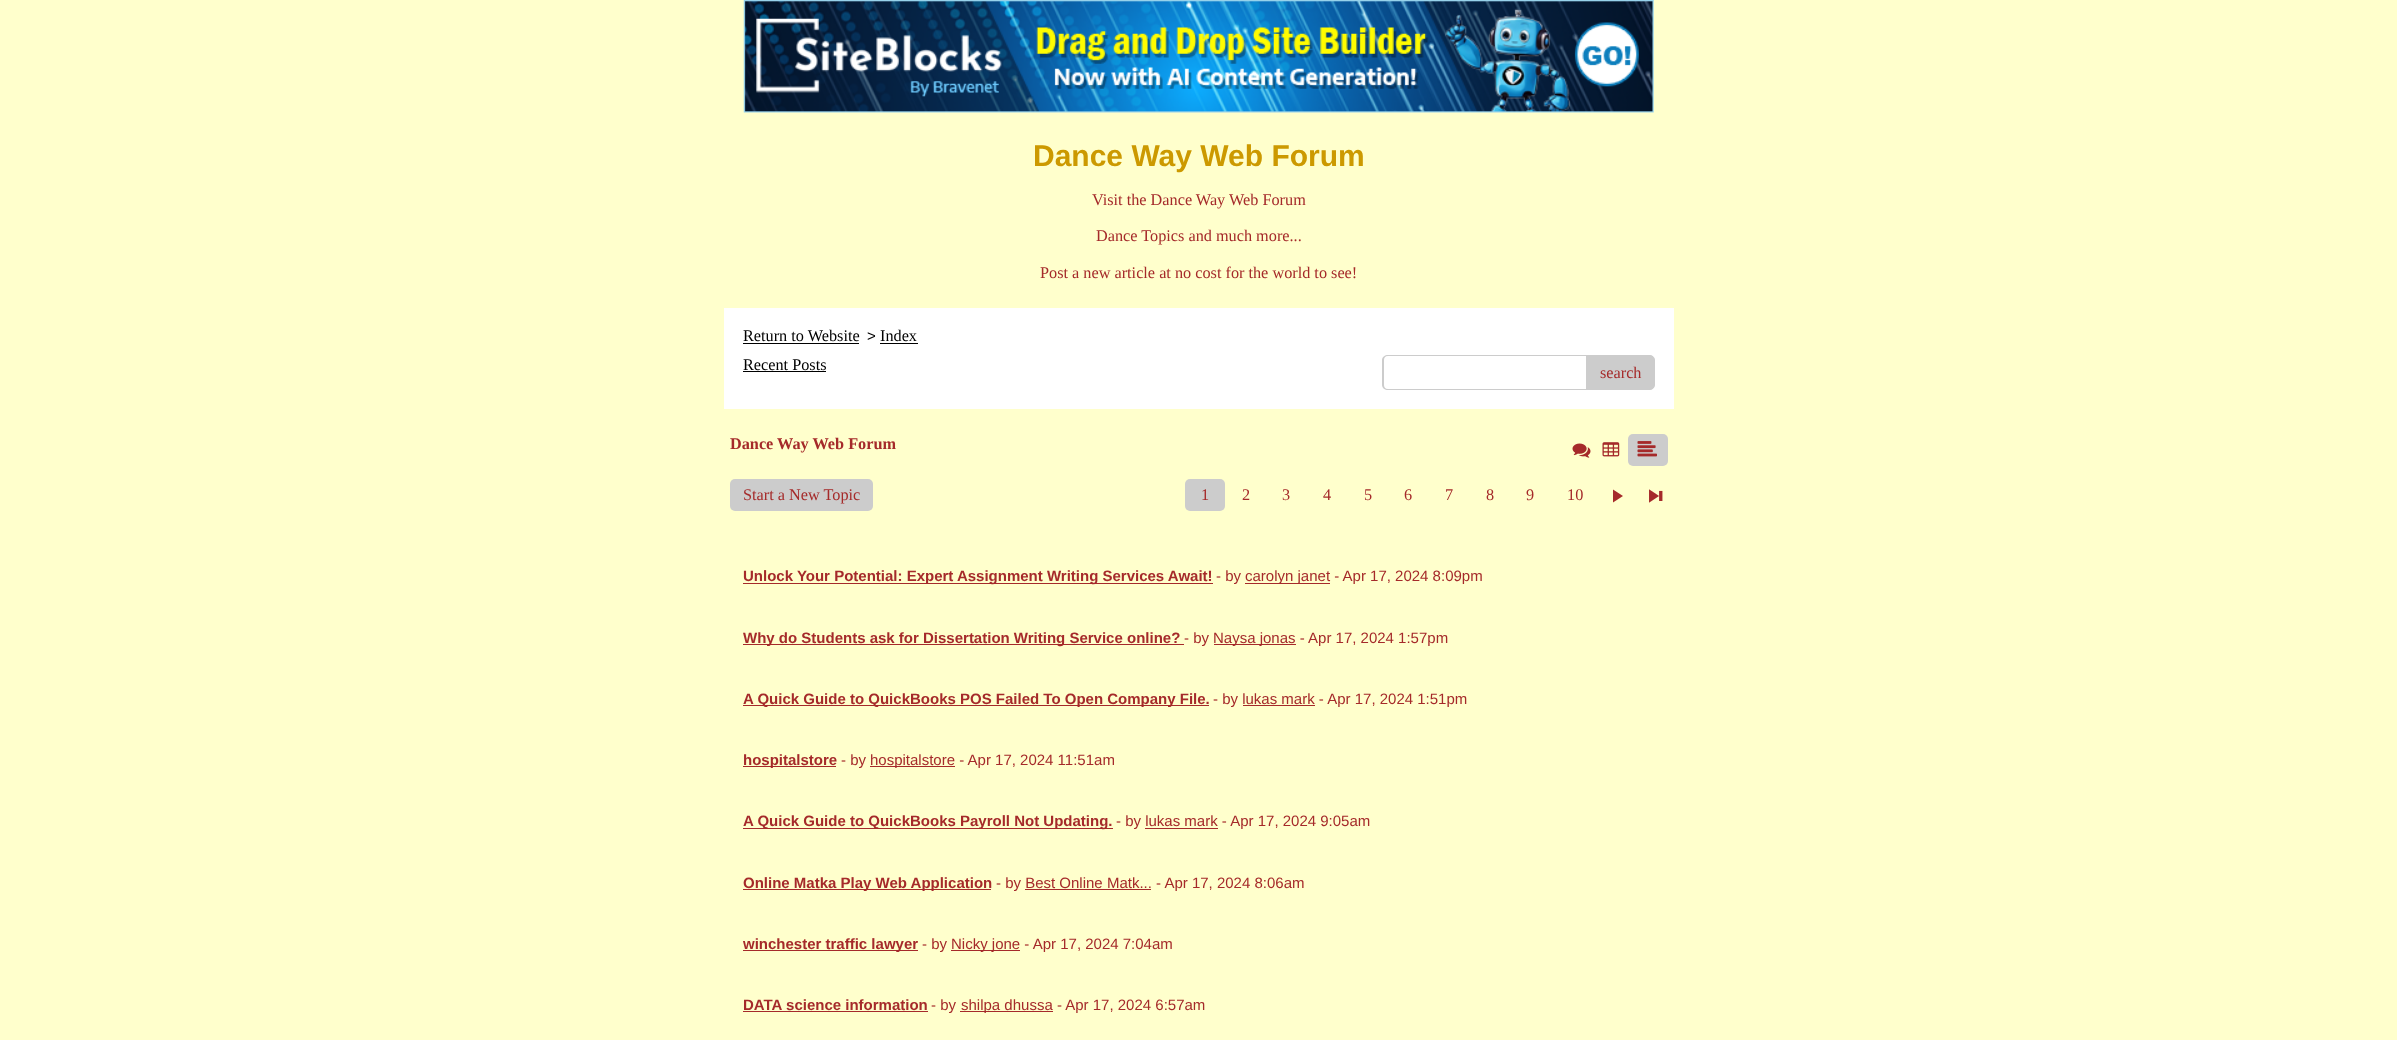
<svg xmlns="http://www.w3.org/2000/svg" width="2397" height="1040">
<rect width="100%" height="100%" fill="#ffc"/>
<image x="743" y="0" width="911" height="113" href="media/1.png"/>
<text x="1033" y="166" style="font-family:Liberation Sans;font-size:30px;font-weight:bold;fill:#c90">Dance Way Web Forum</text>
<text x="1092" y="205" style="font-family:Liberation Serif;font-size:16.25px;fill:#a52a2a">Visit the Dance Way Web Forum</text>
<text x="1096" y="241" style="font-family:Liberation Serif;font-size:16.25px;fill:#a52a2a">Dance Topics and much more...</text>
<text x="1040" y="278" style="font-family:Liberation Serif;font-size:16.25px;fill:#a52a2a">Post a new article at no cost for the world to see!</text>
<rect x="724" y="308" width="950" height="101" fill="#fff"/>
<text x="743" y="341" style="font-family:Liberation Serif;font-size:16.25px;fill:#000">Return to Website</text>
<rect x="743" y="343" width="116" height="1" fill="#000"/>
<text x="867" y="341" style="font-family:Liberation Sans;font-size:15px;fill:#000">&gt;</text>
<text x="880" y="341" style="font-family:Liberation Serif;font-size:16.25px;fill:#000">Index</text>
<rect x="880" y="343" width="38" height="1" fill="#000"/>
<text x="743" y="370" style="font-family:Liberation Serif;font-size:16.25px;fill:#000">Recent Posts</text>
<rect x="743" y="371" width="83" height="1" fill="#000"/>
<path d="M1388 355h250c2 0 4 2 4 5v25c0 3-2 5-4 5h-250c-3 0-6-2-6-5v-25c0-3 3-5 6-5zm0 1h250c2 0 4 2 4 4v25c0 2-2 4-4 4h-250c-3 0-4-2-4-4v-25c0-2 1-4 4-4z" fill="#ccc" fill-rule="evenodd"/>
<path d="M1586.5 355.5h63.5c2.5 0 4.5 2 4.5 4.5v25c0 2.5-2 4.5-4.5 4.5h-63.5z" fill="#ccc" stroke="#ccc"/>
<text x="1600" y="378" style="font-family:Liberation Serif;font-size:16.25px;fill:#a52a2a">search</text>
<text x="730" y="449" style="font-family:Liberation Serif;font-size:16.25px;font-weight:bold;fill:#a52a2a">Dance Way Web Forum</text>
<image x="1572" y="443" width="19" height="15" href="media/2.png"/>
<image x="1602" y="442" width="18" height="15" href="media/3.png"/>
<rect x="1628" y="434" width="40" height="32" rx="5" fill="#ccc"/>
<image x="1637" y="441" width="20" height="16" href="media/4.png"/>
<rect x="730" y="479" width="143" height="32" rx="5" fill="#ccc"/>
<text x="743" y="500" style="font-family:Liberation Serif;font-size:16.25px;fill:#a52a2a">Start a New Topic</text>
<rect x="1185" y="479" width="40" height="32" rx="5" fill="#ccc"/>
<text x="1201" y="500" style="font-family:Liberation Serif;font-size:16.25px;fill:#a52a2a">1</text>
<text x="1242" y="500" style="font-family:Liberation Serif;font-size:16.25px;fill:#a52a2a">2</text>
<text x="1282" y="500" style="font-family:Liberation Serif;font-size:16.25px;fill:#a52a2a">3</text>
<text x="1323" y="500" style="font-family:Liberation Serif;font-size:16.25px;fill:#a52a2a">4</text>
<text x="1364" y="500" style="font-family:Liberation Serif;font-size:16.25px;fill:#a52a2a">5</text>
<text x="1404" y="500" style="font-family:Liberation Serif;font-size:16.25px;fill:#a52a2a">6</text>
<text x="1445" y="500" style="font-family:Liberation Serif;font-size:16.25px;fill:#a52a2a">7</text>
<text x="1486" y="500" style="font-family:Liberation Serif;font-size:16.25px;fill:#a52a2a">8</text>
<text x="1526" y="500" style="font-family:Liberation Serif;font-size:16.25px;fill:#a52a2a">9</text>
<text x="1567" y="500" style="font-family:Liberation Serif;font-size:16.25px;fill:#a52a2a">10</text>
<path d="M1613 489.5l10 6.5l-10 6.5z" fill="#a52a2a"/>
<image x="1649" y="489" width="14" height="14" href="media/5.png"/>
<rect x="743" y="583" width="470" height="1" fill="#a52a2a"/>
<text x="743" y="581" style="font-family:Liberation Sans;font-size:15px;font-weight:bold;fill:#a52a2a">Unlock Your Potential: Expert Assignment Writing Services Await!</text>
<text x="1216" y="581" style="font-family:Liberation Sans;font-size:15px;fill:#a52a2a">- by</text>
<rect x="1245" y="583" width="85" height="1" fill="#a52a2a"/>
<text x="1245" y="581" style="font-family:Liberation Sans;font-size:15px;fill:#a52a2a">carolyn janet - Apr 17, 2024 8:09pm</text>
<rect x="743" y="644" width="441" height="1" fill="#a52a2a"/>
<text x="743" y="643" style="font-family:Liberation Sans;font-size:15px;font-weight:bold;fill:#a52a2a">Why do Students ask for Dissertation Writing Service online?</text>
<text x="1184" y="643" style="font-family:Liberation Sans;font-size:15px;fill:#a52a2a">- by</text>
<rect x="1214" y="644" width="82" height="1" fill="#a52a2a"/>
<text x="1213" y="643" style="font-family:Liberation Sans;font-size:15px;fill:#a52a2a">Naysa jonas - Apr 17, 2024 1:57pm</text>
<rect x="743" y="705" width="466" height="1" fill="#a52a2a"/>
<text x="743" y="704" style="font-family:Liberation Sans;font-size:15px;font-weight:bold;fill:#a52a2a">A Quick Guide to QuickBooks POS Failed To Open Company File.</text>
<text x="1213" y="704" style="font-family:Liberation Sans;font-size:15px;fill:#a52a2a">- by lukas mark - Apr 17, 2024 1:51pm</text>
<rect x="1243" y="705" width="72" height="1" fill="#a52a2a"/>
<rect x="743" y="766" width="93" height="1" fill="#a52a2a"/>
<text x="743" y="765" style="font-family:Liberation Sans;font-size:15px;font-weight:bold;fill:#a52a2a">hospitalstore</text>
<text x="841" y="765" style="font-family:Liberation Sans;font-size:15px;fill:#a52a2a">- by</text>
<rect x="870" y="766" width="85" height="1" fill="#a52a2a"/>
<text x="870" y="765" style="font-family:Liberation Sans;font-size:15px;fill:#a52a2a">hospitalstore - Apr 17, 2024 11:51am</text>
<rect x="743" y="828" width="370" height="1" fill="#a52a2a"/>
<text x="743" y="826" style="font-family:Liberation Sans;font-size:15px;font-weight:bold;fill:#a52a2a">A Quick Guide to QuickBooks Payroll Not Updating.</text>
<text x="1116" y="826" style="font-family:Liberation Sans;font-size:15px;fill:#a52a2a">- by lukas mark - Apr 17, 2024 9:05am</text>
<rect x="1145" y="828" width="73" height="1" fill="#a52a2a"/>
<rect x="743" y="889" width="248" height="1" fill="#a52a2a"/>
<text x="743" y="888" style="font-family:Liberation Sans;font-size:15px;font-weight:bold;fill:#a52a2a">Online Matka Play Web Application</text>
<text x="996" y="888" style="font-family:Liberation Sans;font-size:15px;fill:#a52a2a">- by Best Online Matk... - Apr 17, 2024 8:06am</text>
<rect x="1025" y="889" width="126" height="1" fill="#a52a2a"/>
<rect x="743" y="950" width="175" height="1" fill="#a52a2a"/>
<text x="743" y="949" style="font-family:Liberation Sans;font-size:15px;font-weight:bold;fill:#a52a2a">winchester traffic lawyer</text>
<text x="922" y="949" style="font-family:Liberation Sans;font-size:15px;fill:#a52a2a">- by</text>
<rect x="951" y="950" width="69" height="1" fill="#a52a2a"/>
<text x="951" y="949" style="font-family:Liberation Sans;font-size:15px;fill:#a52a2a">Nicky jone - Apr 17, 2024 7:04am</text>
<text x="743" y="1010" style="font-family:Liberation Sans;font-size:15px;font-weight:bold;fill:#a52a2a">DATA science information</text>
<rect x="743" y="1011" width="185" height="1" fill="#a52a2a"/>
<text x="931" y="1010" style="font-family:Liberation Sans;font-size:15px;fill:#a52a2a">- by</text>
<rect x="960" y="1011" width="93" height="1" fill="#a52a2a"/>
<text x="961" y="1010" style="font-family:Liberation Sans;font-size:15px;fill:#a52a2a">shilpa dhussa - Apr 17, 2024 6:57am</text>
</svg>
